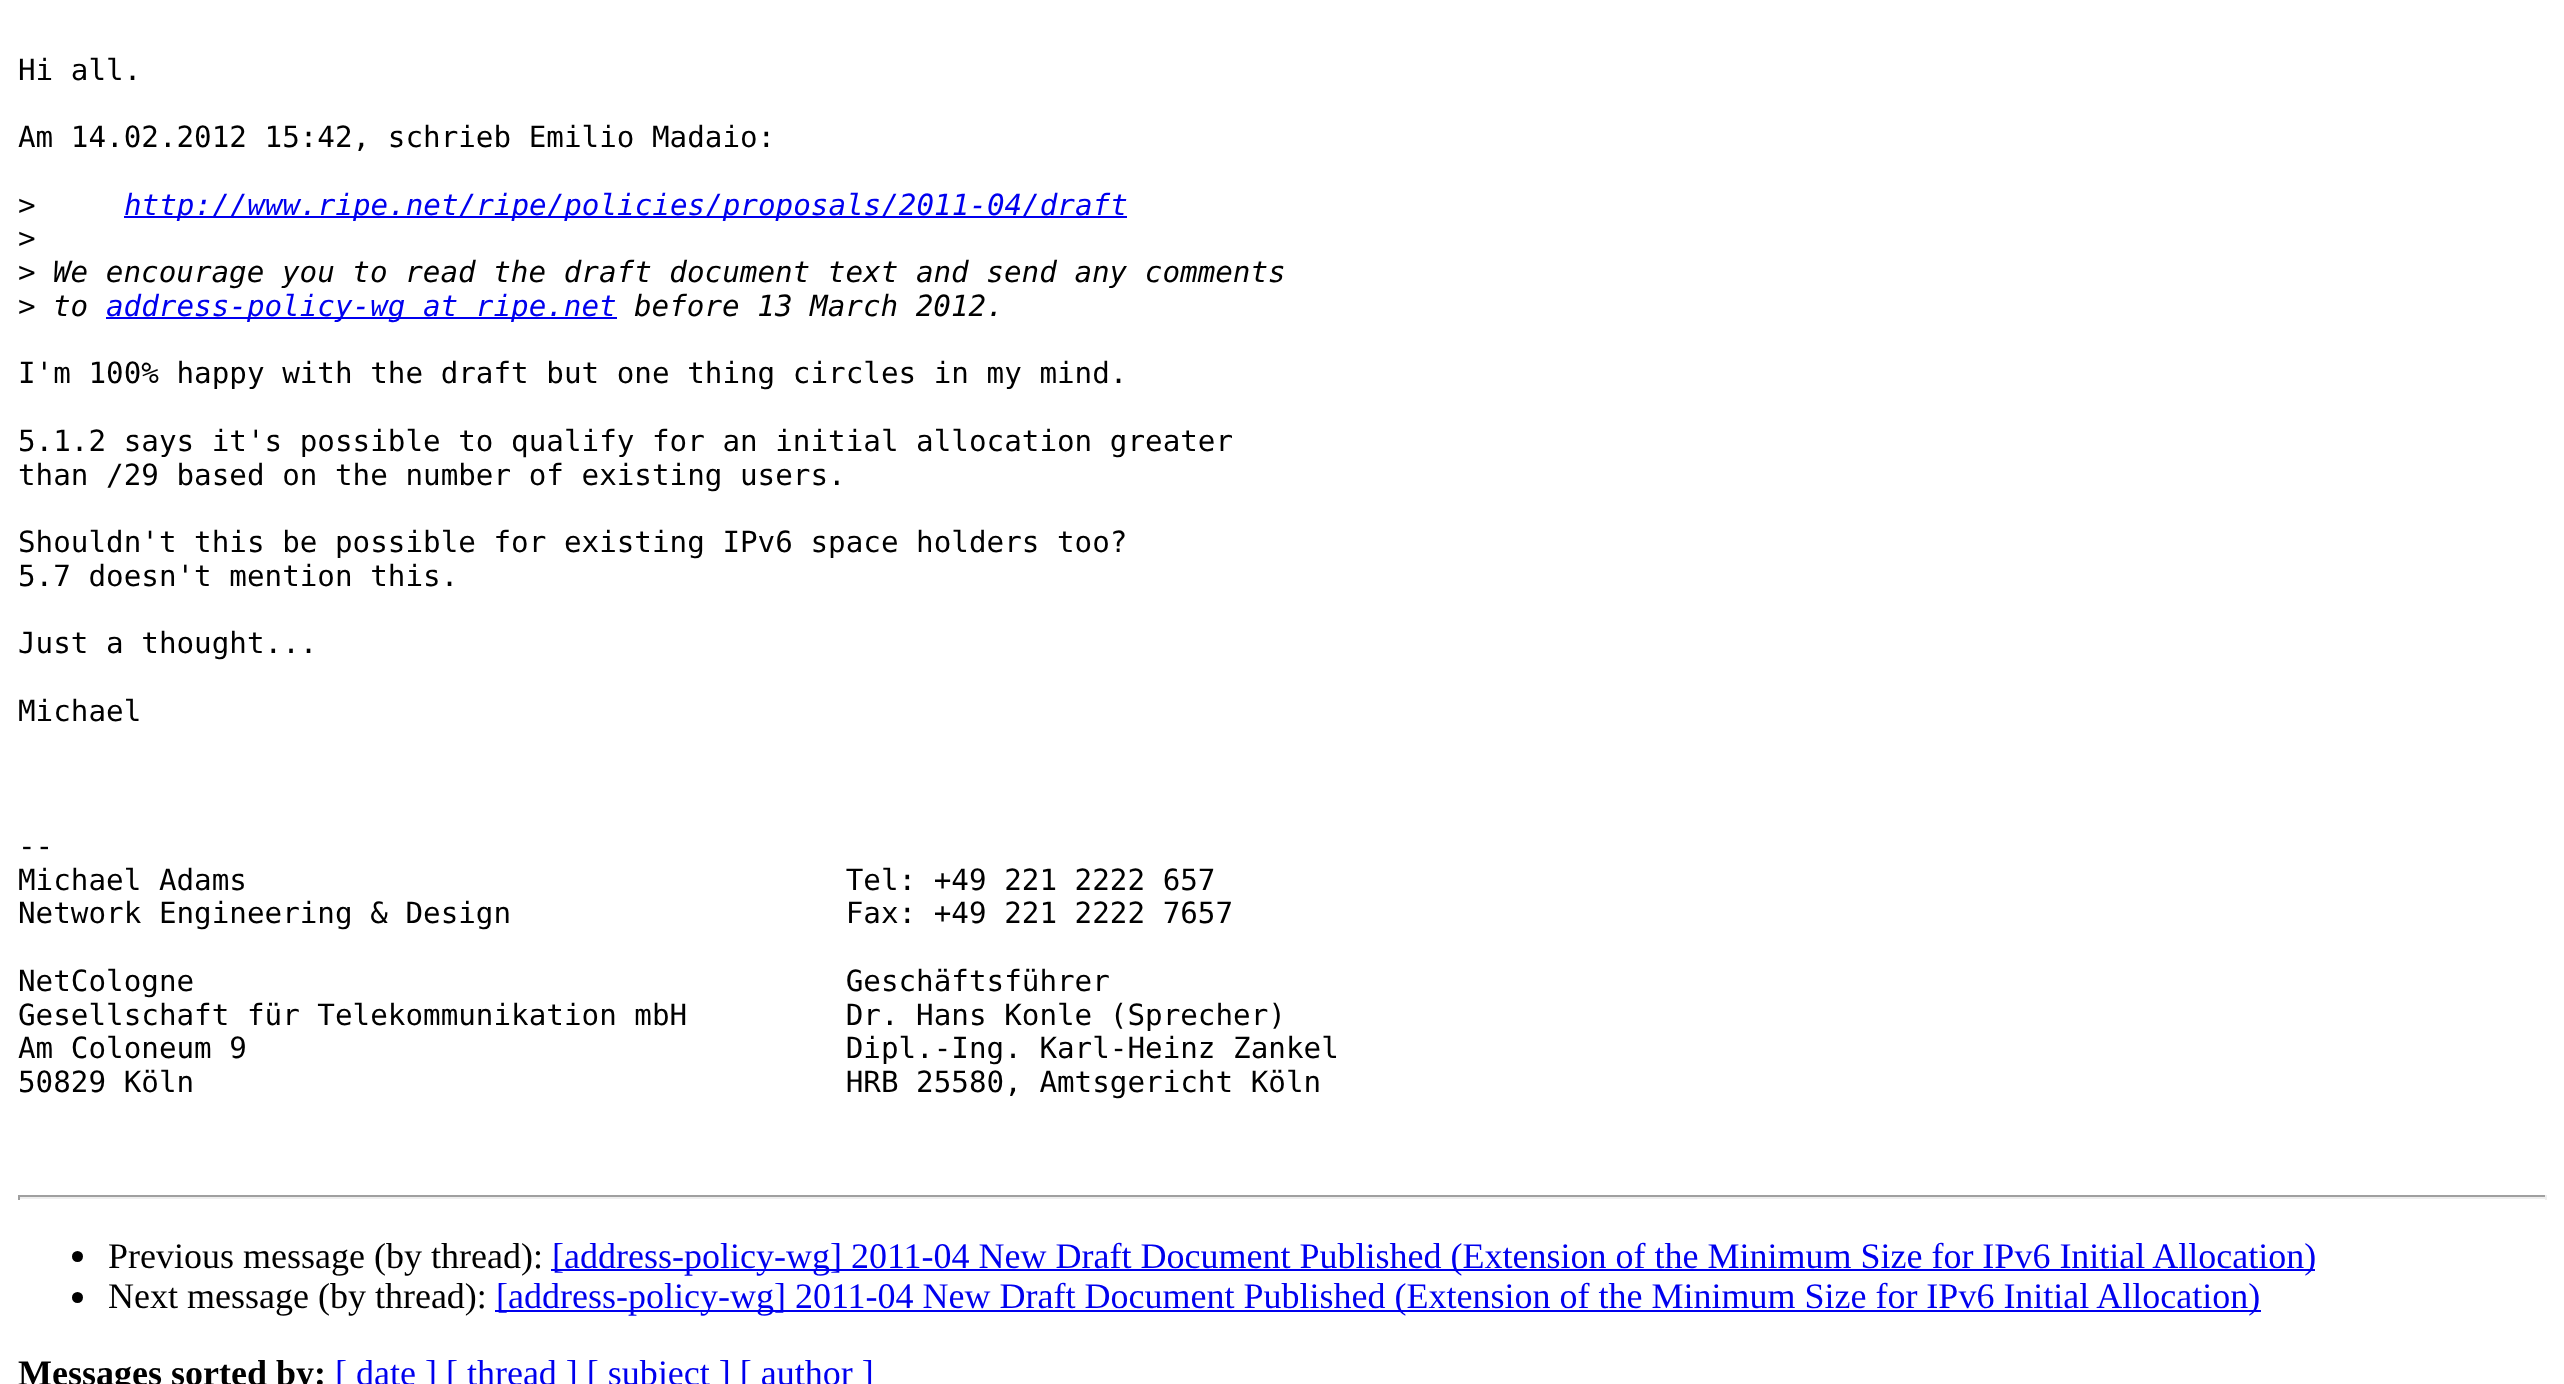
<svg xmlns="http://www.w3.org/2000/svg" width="2564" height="1384">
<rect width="100%" height="100%" fill="#fff"/>
<text x="18" y="80" style="font-family:DejaVu Sans Mono;font-size:29.25px;fill:#000">Hi all.</text>
<text x="18" y="147" style="font-family:DejaVu Sans Mono;font-size:29.25px;fill:#000">Am 14.02.2012 15:42, schrieb Emilio Madaio:</text>
<text x="18" y="215" style="font-family:DejaVu Sans Mono;font-size:29.25px;fill:#000">&gt;</text>
<rect x="124" y="216" width="1003" height="2" fill="#00e"/>
<text x="124" y="215" style="font-family:DejaVu Sans Mono;font-size:29.25px;font-style:italic;fill:#00e">http://www.ripe.net/ripe/policies/proposals/2011-04/draft</text>
<text x="18" y="248" style="font-family:DejaVu Sans Mono;font-size:29.25px;fill:#000">&gt;</text>
<text x="18" y="282" style="font-family:DejaVu Sans Mono;font-size:29.25px;fill:#000">&gt;</text>
<text x="53" y="282" style="font-family:DejaVu Sans Mono;font-size:29.25px;font-style:italic;fill:#000">We encourage you to read the draft document text and send any comments</text>
<text x="18" y="316" style="font-family:DejaVu Sans Mono;font-size:29.25px;fill:#000">&gt;</text>
<text x="53" y="316" style="font-family:DejaVu Sans Mono;font-size:29.25px;font-style:italic;fill:#000">to</text>
<rect x="106" y="317" width="511" height="2" fill="#00e"/>
<text x="106" y="316" style="font-family:DejaVu Sans Mono;font-size:29.25px;font-style:italic;fill:#00e">address-policy-wg at ripe.net</text>
<text x="634" y="316" style="font-family:DejaVu Sans Mono;font-size:29.25px;font-style:italic;fill:#000">before 13 March 2012.</text>
<text x="18" y="383" style="font-family:DejaVu Sans Mono;font-size:29.25px;fill:#000">I'm 100% happy with the draft but one thing circles in my mind.</text>
<text x="18" y="451" style="font-family:DejaVu Sans Mono;font-size:29.25px;fill:#000">5.1.2 says it's possible to qualify for an initial allocation greater</text>
<text x="18" y="485" style="font-family:DejaVu Sans Mono;font-size:29.25px;fill:#000">than /29 based on the number of existing users.</text>
<text x="18" y="552" style="font-family:DejaVu Sans Mono;font-size:29.25px;fill:#000">Shouldn't this be possible for existing IPv6 space holders too?</text>
<text x="18" y="586" style="font-family:DejaVu Sans Mono;font-size:29.25px;fill:#000">5.7 doesn't mention this.</text>
<text x="18" y="653" style="font-family:DejaVu Sans Mono;font-size:29.25px;fill:#000">Just a thought...</text>
<text x="18" y="721" style="font-family:DejaVu Sans Mono;font-size:29.25px;fill:#000">Michael</text>
<text x="18" y="856" style="font-family:DejaVu Sans Mono;font-size:29.25px;fill:#000">--</text>
<text x="18" y="890" style="font-family:DejaVu Sans Mono;font-size:29.25px;fill:#000" xml:space="preserve">Michael Adams                                  Tel: +49 221 2222 657</text>
<text x="18" y="923" style="font-family:DejaVu Sans Mono;font-size:29.25px;fill:#000" xml:space="preserve">Network Engineering &amp; Design                   Fax: +49 221 2222 7657</text>
<text x="18" y="991" style="font-family:DejaVu Sans Mono;font-size:29.25px;fill:#000" xml:space="preserve">NetCologne                                     Geschäftsführer</text>
<text x="18" y="1025" style="font-family:DejaVu Sans Mono;font-size:29.25px;fill:#000" xml:space="preserve">Gesellschaft für Telekommunikation mbH         Dr. Hans Konle (Sprecher)</text>
<text x="18" y="1058" style="font-family:DejaVu Sans Mono;font-size:29.25px;fill:#000" xml:space="preserve">Am Coloneum 9                                  Dipl.-Ing. Karl-Heinz Zankel</text>
<text x="18" y="1092" style="font-family:DejaVu Sans Mono;font-size:29.25px;fill:#000" xml:space="preserve">50829 Köln                                     HRB 25580, Amtsgericht Köln</text>
<rect x="18" y="1195" width="2529" height="2" fill="#9f9f9f"/>
<rect x="2545" y="1195" width="2" height="5" fill="#eee"/>
<rect x="18" y="1197" width="2529" height="2" fill="#eee"/>
<rect x="18" y="1195" width="2" height="5" fill="#9f9f9f"/>
<circle cx="77.5" cy="1256.5" r="5.5" fill="#000"/>
<text x="108" y="1268" style="font-family:Liberation Serif;font-size:36px;fill:#000">Previous message (by thread):</text>
<rect x="551" y="1269" width="1764" height="2" fill="#00e"/>
<text x="552" y="1268" style="font-family:Liberation Serif;font-size:36px;fill:#00e">[address-policy-wg] 2011-04 New Draft Document Published (Extension of the Minimum Size for IPv6 Initial Allocation)</text>
<circle cx="77.5" cy="1297.5" r="5.5" fill="#000"/>
<text x="108" y="1308" style="font-family:Liberation Serif;font-size:36px;fill:#000">Next message (by thread):</text>
<rect x="495" y="1310" width="1766" height="2" fill="#00e"/>
<text x="496" y="1308" style="font-family:Liberation Serif;font-size:36px;fill:#00e">[address-policy-wg] 2011-04 New Draft Document Published (Extension of the Minimum Size for IPv6 Initial Allocation)</text>
<text x="18" y="1385" style="font-family:Liberation Serif;font-size:36px;font-weight:bold;fill:#000">Messages sorted by:</text>
<text x="335" y="1385" style="font-family:Liberation Serif;font-size:36px;fill:#00e">[ date ] [ thread ] [ subject ] [ author ]</text>
</svg>
